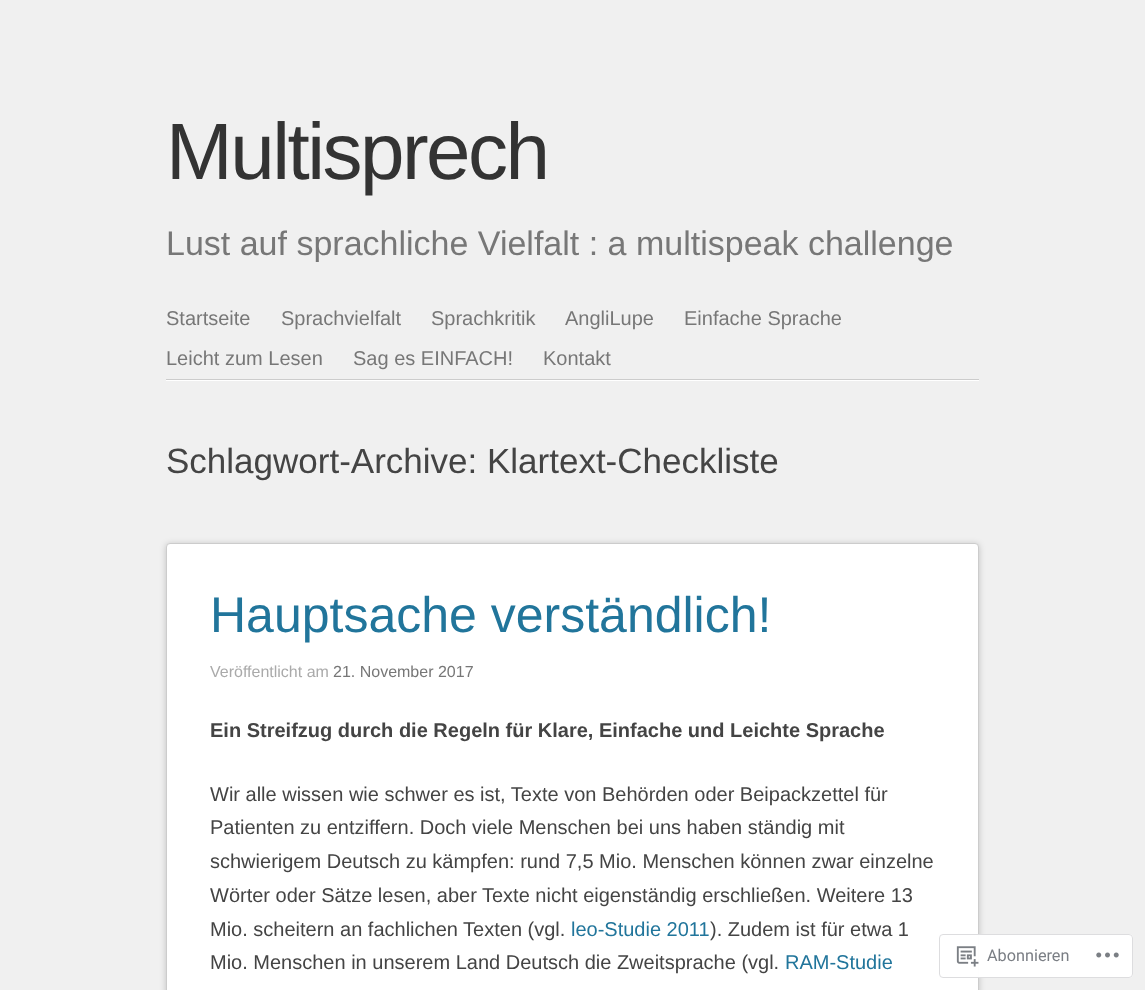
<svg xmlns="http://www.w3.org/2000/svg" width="1145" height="990">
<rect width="100%" height="100%" fill="#f0f0f0"/>
<text x="166" y="179" style="font-family:Liberation Sans;font-size:80px;letter-spacing:-2.5px;fill:#333">Multisprech</text>
<text x="166" y="255" style="font-family:Liberation Sans;font-size:34px;fill:#777">Lust auf sprachliche Vielfalt : a multispeak challenge</text>
<path d="M166 300v81h813v-81v80h-813z" fill="#fff"/>
<rect x="166" y="379" width="813" height="1" fill="#ccc"/>
<text x="166" y="325" style="font-family:Liberation Sans;font-size:20px;fill:#777">Startseite</text>
<text x="281" y="325" style="font-family:Liberation Sans;font-size:20px;fill:#777">Sprachvielfalt</text>
<text x="431" y="325" style="font-family:Liberation Sans;font-size:20px;fill:#777">Sprachkritik</text>
<text x="565" y="325" style="font-family:Liberation Sans;font-size:20px;fill:#777">AngliLupe</text>
<text x="684" y="325" style="font-family:Liberation Sans;font-size:20px;fill:#777">Einfache Sprache</text>
<text x="166" y="365" style="font-family:Liberation Sans;font-size:20px;fill:#777">Leicht zum Lesen</text>
<text x="353" y="365" style="font-family:Liberation Sans;font-size:20px;fill:#777">Sag es EINFACH!</text>
<text x="543" y="365" style="font-family:Liberation Sans;font-size:20px;fill:#777">Kontakt</text>
<text x="166" y="473" style="font-family:Liberation Sans;font-size:35px;fill:#444">Schlagwort-Archive: Klartext-Checkliste</text>
<rect x="166" y="544" width="813" height="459" rx="4" fill="#00000033" filter="blur(3px)"/>
<rect x="166.5" y="543.5" width="812" height="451" rx="3.5" fill="#fff" stroke="#ccc"/>
<text x="210" y="632" style="font-family:Liberation Sans;font-size:50px;fill:#21759b">Hauptsache verständlich!</text>
<text x="210" y="677" style="font-family:Liberation Sans;font-size:16px;fill:#aaa">Veröffentlicht am</text>
<text x="333" y="677" style="font-family:Liberation Sans;font-size:16px;fill:#777">21. November 2017</text>
<text x="210" y="737" style="font-family:Liberation Sans;font-size:20px;font-weight:bold;fill:#444">Ein Streifzug durch die Regeln für Klare, Einfache und Leichte Sprache</text>
<text x="210" y="801" style="font-family:Liberation Sans;font-size:20px;fill:#444">Wir alle wissen wie schwer es ist, Texte von Behörden oder Beipackzettel für</text>
<text x="210" y="834" style="font-family:Liberation Sans;font-size:20px;fill:#444">Patienten zu entziffern. Doch viele Menschen bei uns haben ständig mit</text>
<text x="210" y="868" style="font-family:Liberation Sans;font-size:20px;fill:#444">schwierigem Deutsch zu kämpfen: rund 7,5 Mio. Menschen können zwar einzelne</text>
<text x="210" y="902" style="font-family:Liberation Sans;font-size:20px;fill:#444">Wörter oder Sätze lesen, aber Texte nicht eigenständig erschließen. Weitere 13</text>
<text x="210" y="936" style="font-family:Liberation Sans;font-size:20px;fill:#444">Mio. scheitern an fachlichen Texten (vgl.</text>
<text x="571" y="936" style="font-family:Liberation Sans;font-size:20px;fill:#21759b">leo-Studie 2011</text>
<text x="710" y="936" style="font-family:Liberation Sans;font-size:20px;fill:#444">). Zudem ist für etwa 1</text>
<text x="210" y="969" style="font-family:Liberation Sans;font-size:20px;fill:#444">Mio. Menschen in unserem Land Deutsch die Zweitsprache (vgl.</text>
<text x="785" y="969" style="font-family:Liberation Sans;font-size:20px;fill:#21759b">RAM-Studie</text>
<rect x="939" y="934" width="194" height="44" rx="4" fill="#fffffffa"/>
<rect x="939.5" y="934.5" width="193" height="43" rx="3.5" fill="none" stroke="#dcdcdefa"/>
<image x="956" y="946" width="23" height="21" href="media/1.png"/>
<text x="987" y="961" style="font-family:Roboto;font-size:16.25px;fill:#7a7e84">Abonnieren</text>
<image x="1096" y="952" width="23" height="6" href="media/2.png"/>
</svg>
